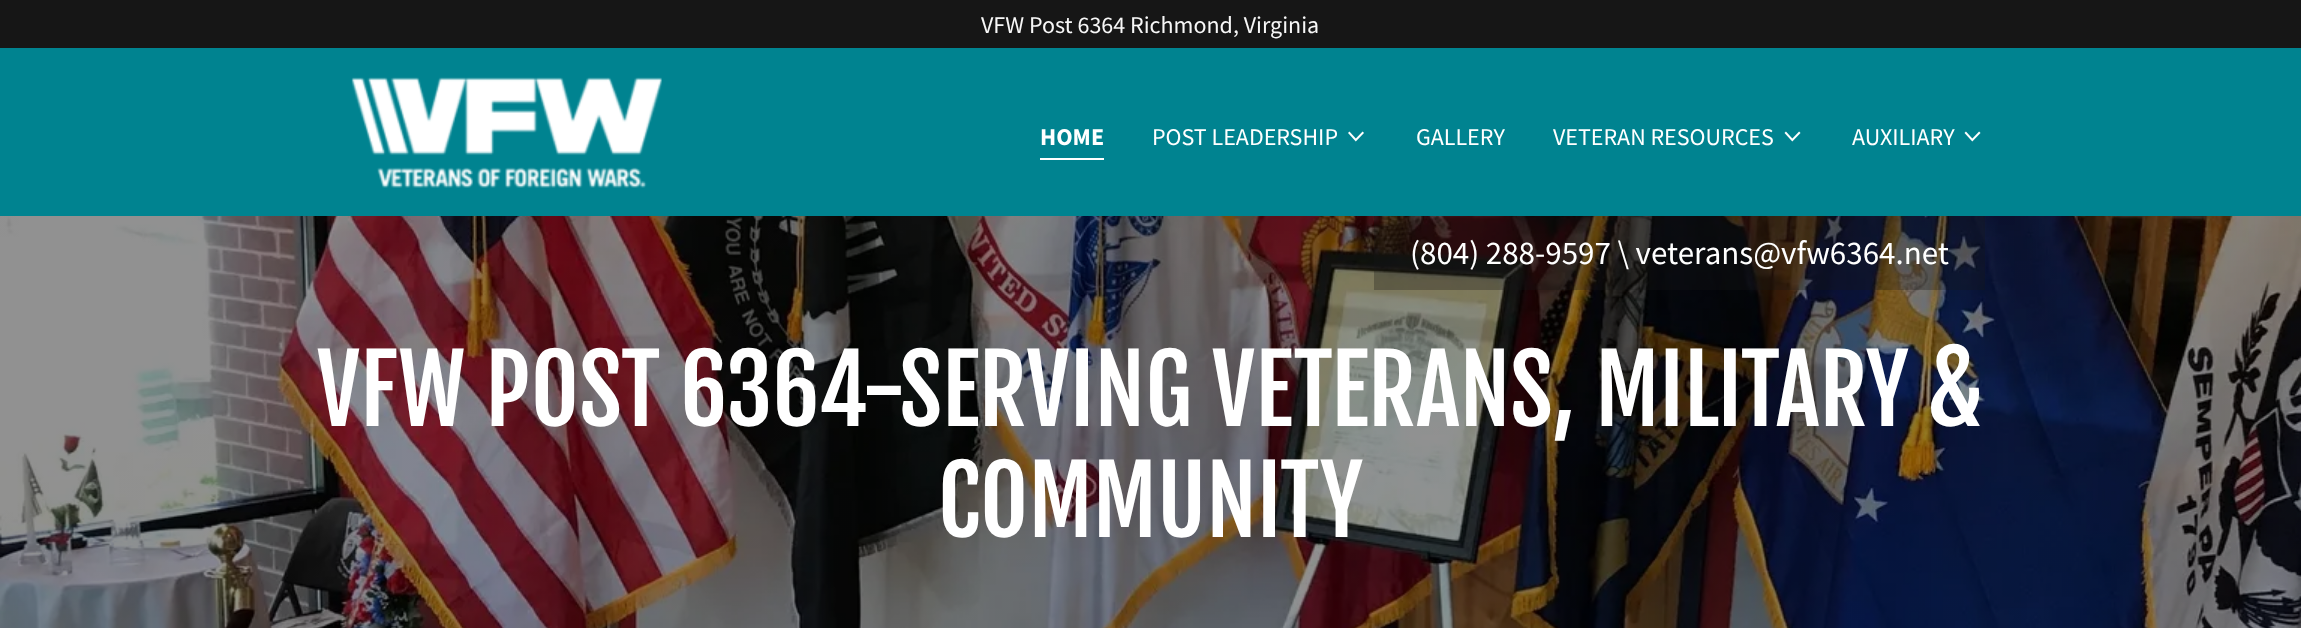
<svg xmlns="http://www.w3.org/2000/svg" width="2301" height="628">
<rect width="100%" height="100%" fill="#008390"/>
<rect width="2301" height="48" fill="#161616"/>
<text x="981" y="33" style="font-family:Source Sans Pro;font-size:24px;fill:#f7f7f7">VFW Post 6364 Richmond, Virginia</text>
<image x="351" y="77" width="311" height="111" href="media/1.png"/>
<rect x="1040" y="158" width="64" height="2" fill="#fff"/>
<text x="1040" y="145" style="font-family:Source Sans Pro;font-size:24px;font-weight:bold;fill:#fff">HOME</text>
<text x="1152" y="145" style="font-family:Source Sans Pro;font-size:24px;fill:#fff">POST LEADERSHIP</text>
<image x="1348" y="131" width="16" height="11" href="media/2.png"/>
<text x="1416" y="145" style="font-family:Source Sans Pro;font-size:24px;fill:#fff">GALLERY</text>
<text x="1553" y="145" style="font-family:Source Sans Pro;font-size:24px;fill:#fff">VETERAN RESOURCES</text>
<image x="1784" y="131" width="17" height="11" href="media/3.png"/>
<text x="1852" y="145" style="font-family:Source Sans Pro;font-size:24px;fill:#fff">AUXILIARY</text>
<image x="1964" y="131" width="17" height="11" href="media/3.png"/>
<image x="0" y="216" width="2301" height="412" href="media/4.png"/>
<rect x="1374" y="216" width="611" height="74" fill="#1616164d"/>
<text x="1410" y="264" style="font-family:Source Sans Pro;font-size:33px;fill:#fff">(804) 288-9597 \ veterans@vfw6364.net</text>
<text x="317" y="426" style="font-family:Fjalla One;font-size:93px;fill:#fff">VFW POST 6364-SERVING VETERANS, MILITARY &amp;</text>
<text x="938" y="537" style="font-family:Fjalla One;font-size:93px;fill:#fff">COMMUNITY</text>
</svg>
